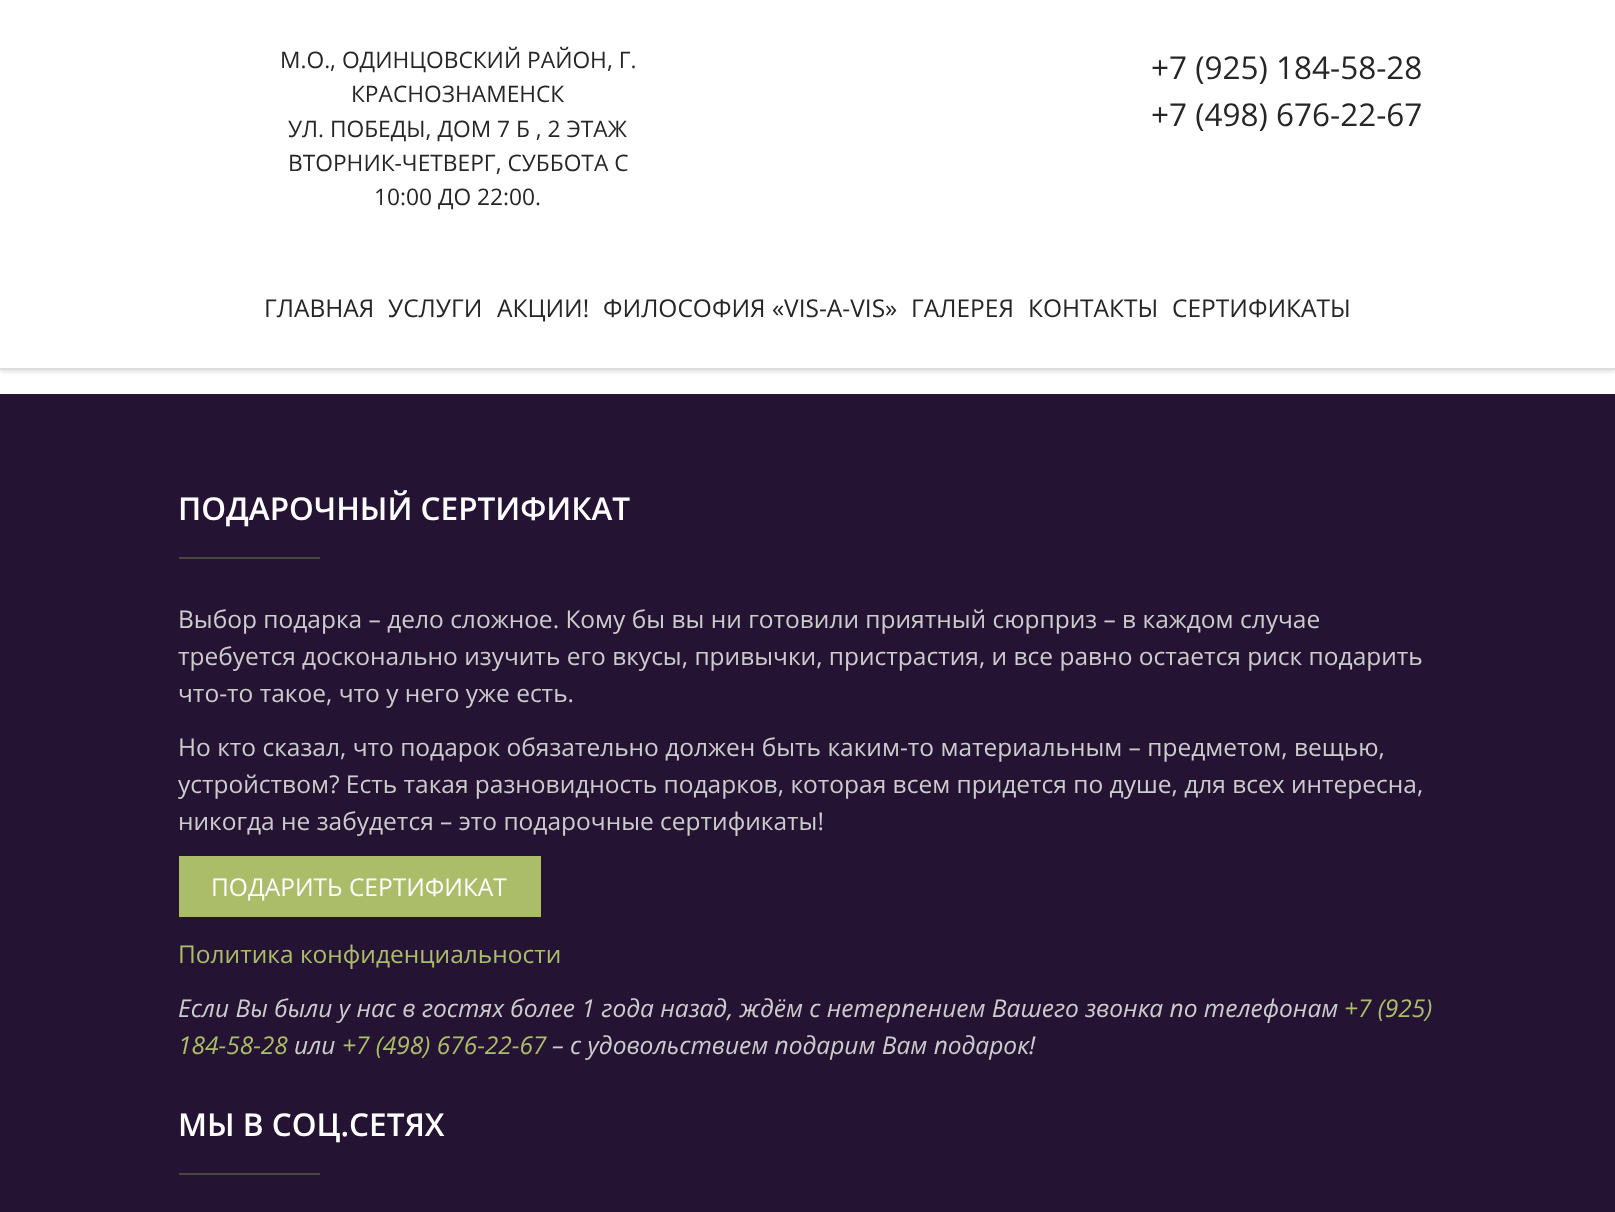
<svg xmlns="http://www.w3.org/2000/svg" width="1615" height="1212">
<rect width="100%" height="100%" fill="#fff"/>
<rect y="2" width="1615" height="369" fill="#00000026" filter="blur(2.5px)"/>
<rect width="1615" height="368" fill="#fff"/>
<rect y="368" width="1615" height="2" fill="#ddd"/>
<text x="280" y="68" style="font-family:Open Sans;font-size:22.75px;fill:#262626">М.О., ОДИНЦОВСКИЙ РАЙОН, Г.</text>
<text x="351" y="102" style="font-family:Open Sans;font-size:22.75px;fill:#262626">КРАСНОЗНАМЕНСК</text>
<text x="288" y="137" style="font-family:Open Sans;font-size:22.75px;fill:#262626">УЛ. ПОБЕДЫ, ДОМ 7 Б , 2 ЭТАЖ</text>
<text x="288" y="171" style="font-family:Open Sans;font-size:22.75px;fill:#262626">ВТОРНИК-ЧЕТВЕРГ, СУББОТА С</text>
<text x="374" y="205" style="font-family:Open Sans;font-size:22.75px;fill:#262626">10:00 ДО 22:00.</text>
<text x="1151" y="79" style="font-family:Open Sans;font-size:31.5px;fill:#262626">+7 (925) 184-58-28</text>
<text x="1151" y="126" style="font-family:Open Sans;font-size:31.5px;fill:#262626">+7 (498) 676-22-67</text>
<text x="264" y="317" style="font-family:Open Sans;font-size:24.5px;fill:#262626">ГЛАВНАЯ</text>
<text x="388" y="317" style="font-family:Open Sans;font-size:24.5px;fill:#262626">УСЛУГИ</text>
<text x="497" y="317" style="font-family:Open Sans;font-size:24.5px;fill:#262626">АКЦИИ!</text>
<text x="603" y="317" style="font-family:Open Sans;font-size:24.5px;fill:#262626">ФИЛОСОФИЯ «VIS-A-VIS»</text>
<text x="911" y="317" style="font-family:Open Sans;font-size:24.5px;fill:#262626">ГАЛЕРЕЯ</text>
<text x="1028" y="317" style="font-family:Open Sans;font-size:24.5px;fill:#262626">КОНТАКТЫ</text>
<text x="1172" y="317" style="font-family:Open Sans;font-size:24.5px;fill:#262626">СЕРТИФИКАТЫ</text>
<rect y="394" width="1615" height="818" fill="#251333"/>
<text x="178" y="520" style="font-family:Open Sans;font-size:31.5px;font-weight:600;fill:#fff">ПОДАРОЧНЫЙ СЕРТИФИКАТ</text>
<rect x="179" y="557" width="141" height="2" fill="#464843"/>
<text x="178" y="628" style="font-family:Open Sans;font-size:24.5px;fill:#ccc">Выбор подарка – дело сложное. Кому бы вы ни готовили приятный сюрприз – в каждом случае</text>
<text x="178" y="665" style="font-family:Open Sans;font-size:24.5px;fill:#ccc">требуется досконально изучить его вкусы, привычки, пристрастия, и все равно остается риск подарить</text>
<text x="178" y="702" style="font-family:Open Sans;font-size:24.5px;fill:#ccc">что-то такое, что у него уже есть.</text>
<text x="178" y="756" style="font-family:Open Sans;font-size:24.5px;fill:#ccc">Но кто сказал, что подарок обязательно должен быть каким-то материальным – предметом, вещью,</text>
<text x="178" y="793" style="font-family:Open Sans;font-size:24.5px;fill:#ccc">устройством? Есть такая разновидность подарков, которая всем придется по душе, для всех интересна,</text>
<text x="178" y="830" style="font-family:Open Sans;font-size:24.5px;fill:#ccc">никогда не забудется – это подарочные сертификаты!</text>
<rect x="179" y="856" width="362" height="61" fill="#abbd69"/>
<text x="211" y="896" style="font-family:Open Sans;font-size:24.5px;fill:#fff">ПОДАРИТЬ СЕРТИФИКАТ</text>
<text x="178" y="963" style="font-family:Open Sans;font-size:24.5px;fill:#abbd69">Политика конфиденциальности</text>
<text x="178" y="1017" style="font-family:Open Sans;font-size:24.5px;font-style:italic;fill:#ccc">Если Вы были у нас в гостях более 1 года назад, ждём с нетерпением Вашего звонка по телефонам</text>
<text x="1344" y="1017" style="font-family:Open Sans;font-size:24.5px;font-style:italic;fill:#abbd69">+7 (925)</text>
<text x="178" y="1054" style="font-family:Open Sans;font-size:24.5px;font-style:italic;fill:#abbd69">184-58-28</text>
<text x="294" y="1054" style="font-family:Open Sans;font-size:24.5px;font-style:italic;fill:#ccc">или</text>
<text x="342" y="1054" style="font-family:Open Sans;font-size:24.5px;font-style:italic;fill:#abbd69">+7 (498) 676-22-67</text>
<text x="552" y="1054" style="font-family:Open Sans;font-size:24.5px;font-style:italic;fill:#ccc">– с удовольствием подарим Вам подарок!</text>
<text x="178" y="1136" style="font-family:Open Sans;font-size:31.5px;font-weight:600;fill:#fff">МЫ В СОЦ.СЕТЯХ</text>
<rect x="179" y="1173" width="141" height="2" fill="#464843"/>
</svg>
